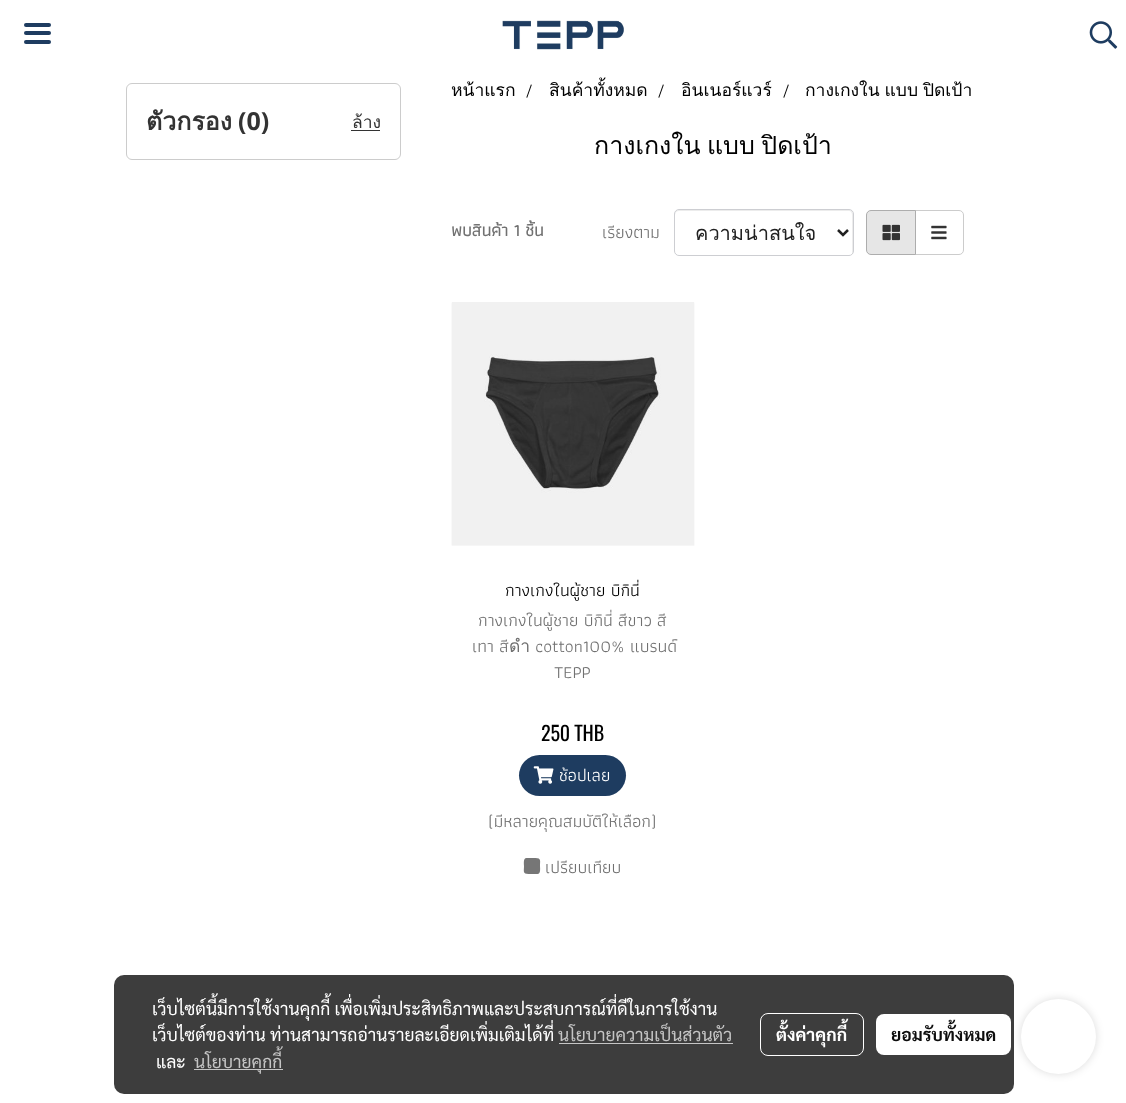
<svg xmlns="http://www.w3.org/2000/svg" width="1126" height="1103">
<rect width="100%" height="100%" fill="#fff"/>
<rect x="24" y="31" width="27" height="4" rx="2" fill="#1e3c60"/>
<rect x="24" y="23" width="27" height="4" rx="2" fill="#1e3c60"/>
<rect x="24" y="40" width="27" height="4" rx="2" fill="#1e3c60"/>
<image x="502" y="20" width="122" height="30" href="media/1.png"/>
<image x="1089" y="21" width="29" height="28" href="media/2.png"/>
<rect x="126.5" y="83.5" width="274" height="76" rx="5.5" fill="none" stroke="#ccc"/>
<text x="146" y="130" style="font-family:Loma;font-size:25px;font-weight:bold;fill:#333">ตัวกรอง</text>
<text x="238" y="130" style="font-family:Open Sans;font-size:25px;font-weight:bold;fill:#333">(0)</text>
<text x="352" y="128" style="font-family:Loma;font-size:17.5px;fill:#333">ล้าง</text>
<rect x="351" y="130" width="29" height="1" fill="#333"/>
<text x="451" y="96" style="font-family:Loma;font-size:17.5px;fill:#000">หน้าแรก</text>
<text x="525" y="96" style="font-family:Athiti;font-size:17.5px;fill:#000">/</text>
<text x="549" y="96" style="font-family:Loma;font-size:17.5px;fill:#000">สินค้าทั้งหมด</text>
<text x="657" y="96" style="font-family:Athiti;font-size:17.5px;fill:#000">/</text>
<text x="681" y="96" style="font-family:Loma;font-size:17.5px;fill:#000">อินเนอร์แวร์</text>
<text x="782" y="96" style="font-family:Athiti;font-size:17.5px;fill:#000">/</text>
<text x="805" y="96" word-spacing="-1" style="font-family:Loma;font-size:17.5px;fill:#000">กางเกงใน แบบ ปิดเป้า</text>
<text x="594" y="154" word-spacing="-2" style="font-family:Loma;font-size:25px;fill:#000">กางเกงใน แบบ ปิดเป้า</text>
<text x="451" y="236" style="font-family:Athiti;font-size:17.5px;font-weight:bold;fill:#717171">พบสินค้า 1 ชิ้น</text>
<text x="602" y="238" style="font-family:Athiti;font-size:17.5px;fill:#717171">เรียงตาม</text>
<path d="M679 211h170c2 0 3 2 3 4v39c1-1 1-2 1-3v-37c0-2-2-4-4-4h-170c-2 0-4 2-4 4v1c0-2 2-4 4-4z" fill="#ececec"/>
<rect x="674.5" y="209.5" width="179" height="46" rx="4.5" fill="none" stroke="#cdced2"/>
<path d="M838 230l5 5l5-5" fill="none" stroke="#212121" stroke-width="2.5"/>
<text x="695" y="240" style="font-family:Loma;font-size:20px;fill:#212121">ความน่าสนใจ</text>
<path d="M915.5 210.5h43.5c2.5 0 4.5 2 4.5 4.5v35c0 2.5-2 4.5-4.5 4.5h-43.5z" fill="none" stroke="#ccc"/>
<path d="M871 210.5h44.5v44h-44.5c-2.5 0-4.5-2-4.5-4.5v-35c0-2.5 2-4.5 4.5-4.5z" fill="#e6e6e6" stroke="#adadad"/>
<image x="882" y="224" width="18" height="17" href="media/3.png"/>
<image x="931" y="225" width="16" height="15" href="media/4.png"/>
<image x="451" y="302" width="244" height="244" href="media/5.png"/>
<text x="505" y="596" style="font-family:Athiti;font-size:17.5px;fill:#000">กางเกงในผู้ชาย บิกินี่</text>
<text x="478" y="626" style="font-family:Athiti;font-size:17.5px;fill:#717171">กางเกงในผู้ชาย บิกินี่ สีขาว สี</text>
<text x="472" y="652" style="font-family:Athiti;font-size:17.5px;fill:#717171">เทา สีดำ cotton100% แบรนด์</text>
<text x="554" y="678" style="font-family:Athiti;font-size:17.5px;fill:#717171">TEPP</text>
<text x="541" y="741" style="font-family:Oswald;font-size:20px;fill:#000">250 THB</text>
<rect x="519" y="755" width="107" height="41" rx="20.5" fill="#1e3c60"/>
<text x="559" y="781" style="font-family:Athiti;font-size:17.5px;fill:#fff">ช้อปเลย</text>
<image x="533" y="766" width="21" height="18" href="media/6.png"/>
<text x="488" y="827" style="font-family:Athiti;font-size:17.5px;fill:#717171">(มีหลายคุณสมบัติให้เลือก)</text>
<path d="M526.5 858h9c6 0 4.5 3 4.5 8c0 2 1 8-2.5 8h-9c-6 0-4.5-3-4.5-8c0-2-1-8 2.5-8z" fill="#767676"/>
<text x="545" y="873" style="font-family:Athiti;font-size:17.5px;fill:#717171">เปรียบเทียบ</text>
<rect x="1021" y="999" width="75" height="75" rx="37.5" fill="#00000024" filter="blur(4.5px)"/>
<rect x="114" y="975" width="900" height="119" rx="10" fill="#000000c2"/>
<text x="152" y="1015" style="font-family:Sarabun;font-size:17.5px;fill:#fff">เว็บไซต์นี้มีการใช้งานคุกกี้ เพื่อเพิ่มประสิทธิภาพและประสบการณ์ที่ดีในการใช้งาน</text>
<text x="152" y="1041" style="font-family:Sarabun;font-size:17.5px;fill:#fff">เว็บไซต์ของท่าน ท่านสามารถอ่านรายละเอียดเพิ่มเติมได้ที่</text>
<text x="558" y="1041" style="font-family:Sarabun;font-size:17.5px;fill:#c5c5c5">นโยบายความเป็นส่วนตัว</text>
<rect x="559" y="1043" width="174" height="1" fill="#c5c5c5"/>
<text x="156" y="1068" style="font-family:Sarabun;font-size:17.5px;fill:#fff">และ</text>
<rect x="194" y="1069" width="89" height="1" fill="#c5c5c5"/>
<text x="194" y="1068" style="font-family:Sarabun;font-size:17.5px;fill:#c5c5c5">นโยบายคุกกี้</text>
<rect x="760.5" y="1013.5" width="103" height="42" rx="7.5" fill="none" stroke="#fff"/>
<text x="776" y="1041" style="font-family:Sarabun;font-size:17.5px;font-weight:bold;fill:#fff">ตั้งค่าคุกกี้</text>
<rect x="876" y="1014" width="135" height="41" rx="8" fill="#fff"/>
<text x="891" y="1041" style="font-family:Sarabun;font-size:17.5px;font-weight:bold;fill:#0d0d0d">ยอมรับทั้งหมด</text>
<circle cx="1058.5" cy="1036.5" r="37.5" fill="#fff"/>
</svg>
